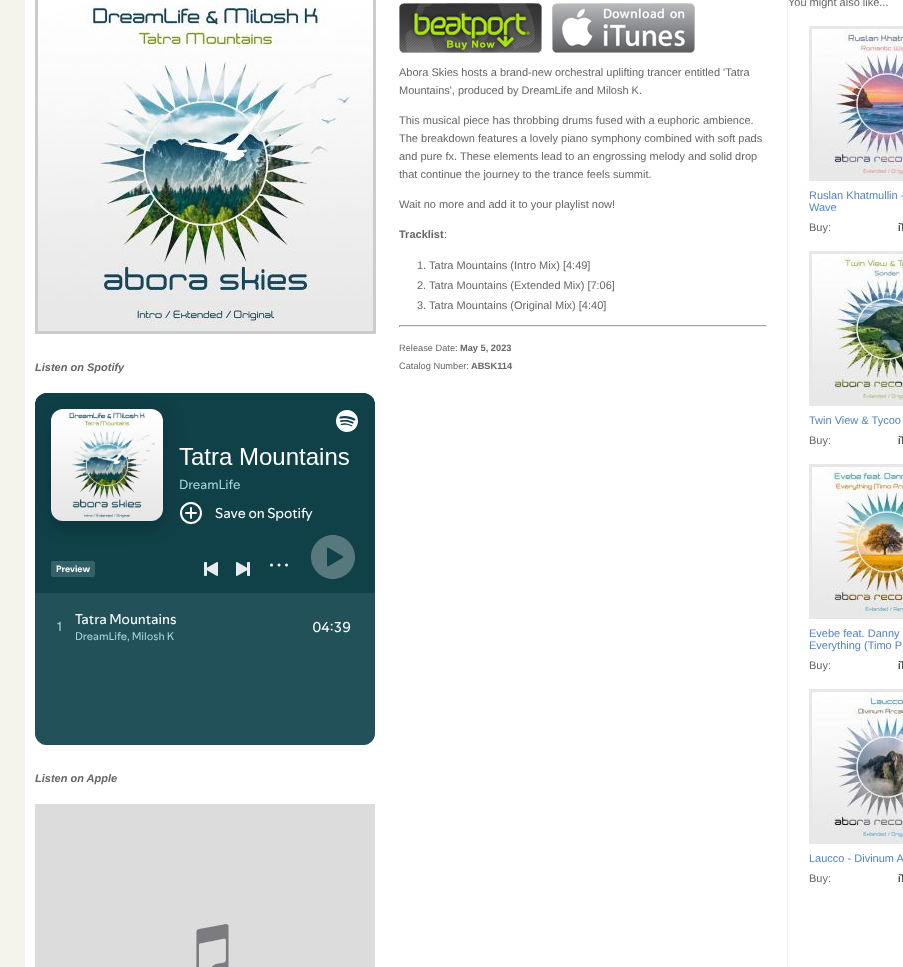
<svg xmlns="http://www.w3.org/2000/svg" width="903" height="967">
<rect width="100%" height="100%" fill="#f4f4ed"/>
<rect x="25" width="878" height="967" fill="#fff"/>
<rect x="787" width="1" height="967" fill="#f4f4f4"/>
<image x="399" y="3" width="143" height="50" href="media/1.png"/>
<image x="552" y="3" width="143" height="50" href="media/2.png"/>
<text x="399" y="76" style="font-family:Liberation Sans;font-size:11px;fill:#666">Abora Skies hosts a brand-new orchestral uplifting trancer entitled 'Tatra</text>
<text x="399" y="94" style="font-family:Liberation Sans;font-size:11px;fill:#666">Mountains', produced by DreamLife and Milosh K.</text>
<text x="399" y="124" style="font-family:Liberation Sans;font-size:11px;fill:#666">This musical piece has throbbing drums fused with a euphoric ambience.</text>
<text x="399" y="142" style="font-family:Liberation Sans;font-size:11px;fill:#666">The breakdown features a lovely piano symphony combined with soft pads</text>
<text x="399" y="160" style="font-family:Liberation Sans;font-size:11px;fill:#666">and pure fx. These elements lead to an engrossing melody and solid drop</text>
<text x="399" y="178" style="font-family:Liberation Sans;font-size:11px;fill:#666">that continue the journey to the trance feels summit.</text>
<text x="399" y="208" style="font-family:Liberation Sans;font-size:11px;fill:#666">Wait no more and add it to your playlist now!</text>
<text x="399" y="238" style="font-family:Liberation Sans;font-size:11px;font-weight:bold;fill:#666">Tracklist</text>
<text x="444" y="238" style="font-family:Liberation Sans;font-size:11px;fill:#666">:</text>
<text x="417" y="269" style="font-family:Liberation Sans;font-size:11px;fill:#666">1. Tatra Mountains (Intro Mix) [4:49]</text>
<text x="417" y="289" style="font-family:Liberation Sans;font-size:11px;fill:#666">2. Tatra Mountains (Extended Mix) [7:06]</text>
<text x="417" y="309" style="font-family:Liberation Sans;font-size:11px;fill:#666">3. Tatra Mountains (Original Mix) [4:40]</text>
<rect x="399" y="325" width="368" height="1" fill="#9f9f9f"/>
<rect x="766" y="325" width="1" height="2" fill="#eee"/>
<rect x="399" y="326" width="368" height="1" fill="#eee"/>
<rect x="399" y="325" width="1" height="2" fill="#9f9f9f"/>
<text x="399" y="351" style="font-family:Liberation Sans;font-size:9.25px;fill:#666">Release Date:</text>
<text x="460" y="351" style="font-family:Liberation Sans;font-size:9.25px;font-weight:bold;fill:#666">May 5, 2023</text>
<text x="399" y="369" style="font-family:Liberation Sans;font-size:9.25px;fill:#666">Catalog Number:</text>
<text x="471" y="369" style="font-family:Liberation Sans;font-size:9.25px;font-weight:bold;fill:#666">ABSK114</text>
<rect x="36.5" y="-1.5" width="338" height="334" fill="none" stroke="#ccc" stroke-width="3"/>
<image x="38" y="0" width="335" height="331" href="media/3.png"/>
<text x="35" y="371" style="font-family:Liberation Sans;font-size:11px;font-weight:bold;font-style:italic;fill:#666">Listen on Spotify</text>
<image x="35" y="393" width="340" height="352" href="media/4.png"/>
<text x="35" y="782" style="font-family:Liberation Sans;font-size:11px;font-weight:bold;font-style:italic;fill:#666">Listen on Apple</text>
<image x="35" y="804" width="340" height="163" href="media/5.png"/>
<text x="788" y="6" style="font-family:Liberation Sans;font-size:11px;fill:#666">You might also like...</text>
<rect x="810.5" y="27.5" width="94" height="152" fill="none" stroke="#e8e8e8" stroke-width="3"/>
<image x="812" y="29" width="91" height="150" href="media/6.png"/>
<text x="809" y="199" style="font-family:Liberation Sans;font-size:11px;fill:#5682c1">Ruslan Khatmullin -</text>
<text x="809" y="211" style="font-family:Liberation Sans;font-size:11px;fill:#5682c1">Wave</text>
<text x="809" y="231" style="font-family:Liberation Sans;font-size:11px;fill:#666">Buy:</text>
<text x="898" y="231" style="font-family:Liberation Sans;font-size:11px;letter-spacing:-1px;fill:#000">iT</text>
<rect x="810.5" y="252.5" width="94" height="152" fill="none" stroke="#e8e8e8" stroke-width="3"/>
<image x="812" y="254" width="91" height="149" href="media/7.png"/>
<text x="809" y="424" style="font-family:Liberation Sans;font-size:11px;fill:#5682c1">Twin View &amp; Tycoo</text>
<text x="809" y="444" style="font-family:Liberation Sans;font-size:11px;fill:#666">Buy:</text>
<text x="898" y="444" style="font-family:Liberation Sans;font-size:11px;letter-spacing:-1px;fill:#000">iT</text>
<rect x="810.5" y="465.5" width="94" height="152" fill="none" stroke="#e8e8e8" stroke-width="3"/>
<image x="812" y="467" width="91" height="149" href="media/8.png"/>
<text x="809" y="637" style="font-family:Liberation Sans;font-size:11px;fill:#5682c1">Evebe feat. Danny</text>
<text x="809" y="649" style="font-family:Liberation Sans;font-size:11px;fill:#5682c1">Everything (Timo P</text>
<text x="809" y="669" style="font-family:Liberation Sans;font-size:11px;fill:#666">Buy:</text>
<text x="898" y="669" style="font-family:Liberation Sans;font-size:11px;letter-spacing:-1px;fill:#000">iT</text>
<rect x="810.5" y="690.5" width="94" height="152" fill="none" stroke="#e8e8e8" stroke-width="3"/>
<image x="812" y="692" width="91" height="150" href="media/9.png"/>
<text x="809" y="862" style="font-family:Liberation Sans;font-size:11px;fill:#5682c1">Laucco - Divinum A</text>
<text x="809" y="882" style="font-family:Liberation Sans;font-size:11px;fill:#666">Buy:</text>
<text x="898" y="882" style="font-family:Liberation Sans;font-size:11px;letter-spacing:-1px;fill:#000">iT</text>
</svg>
